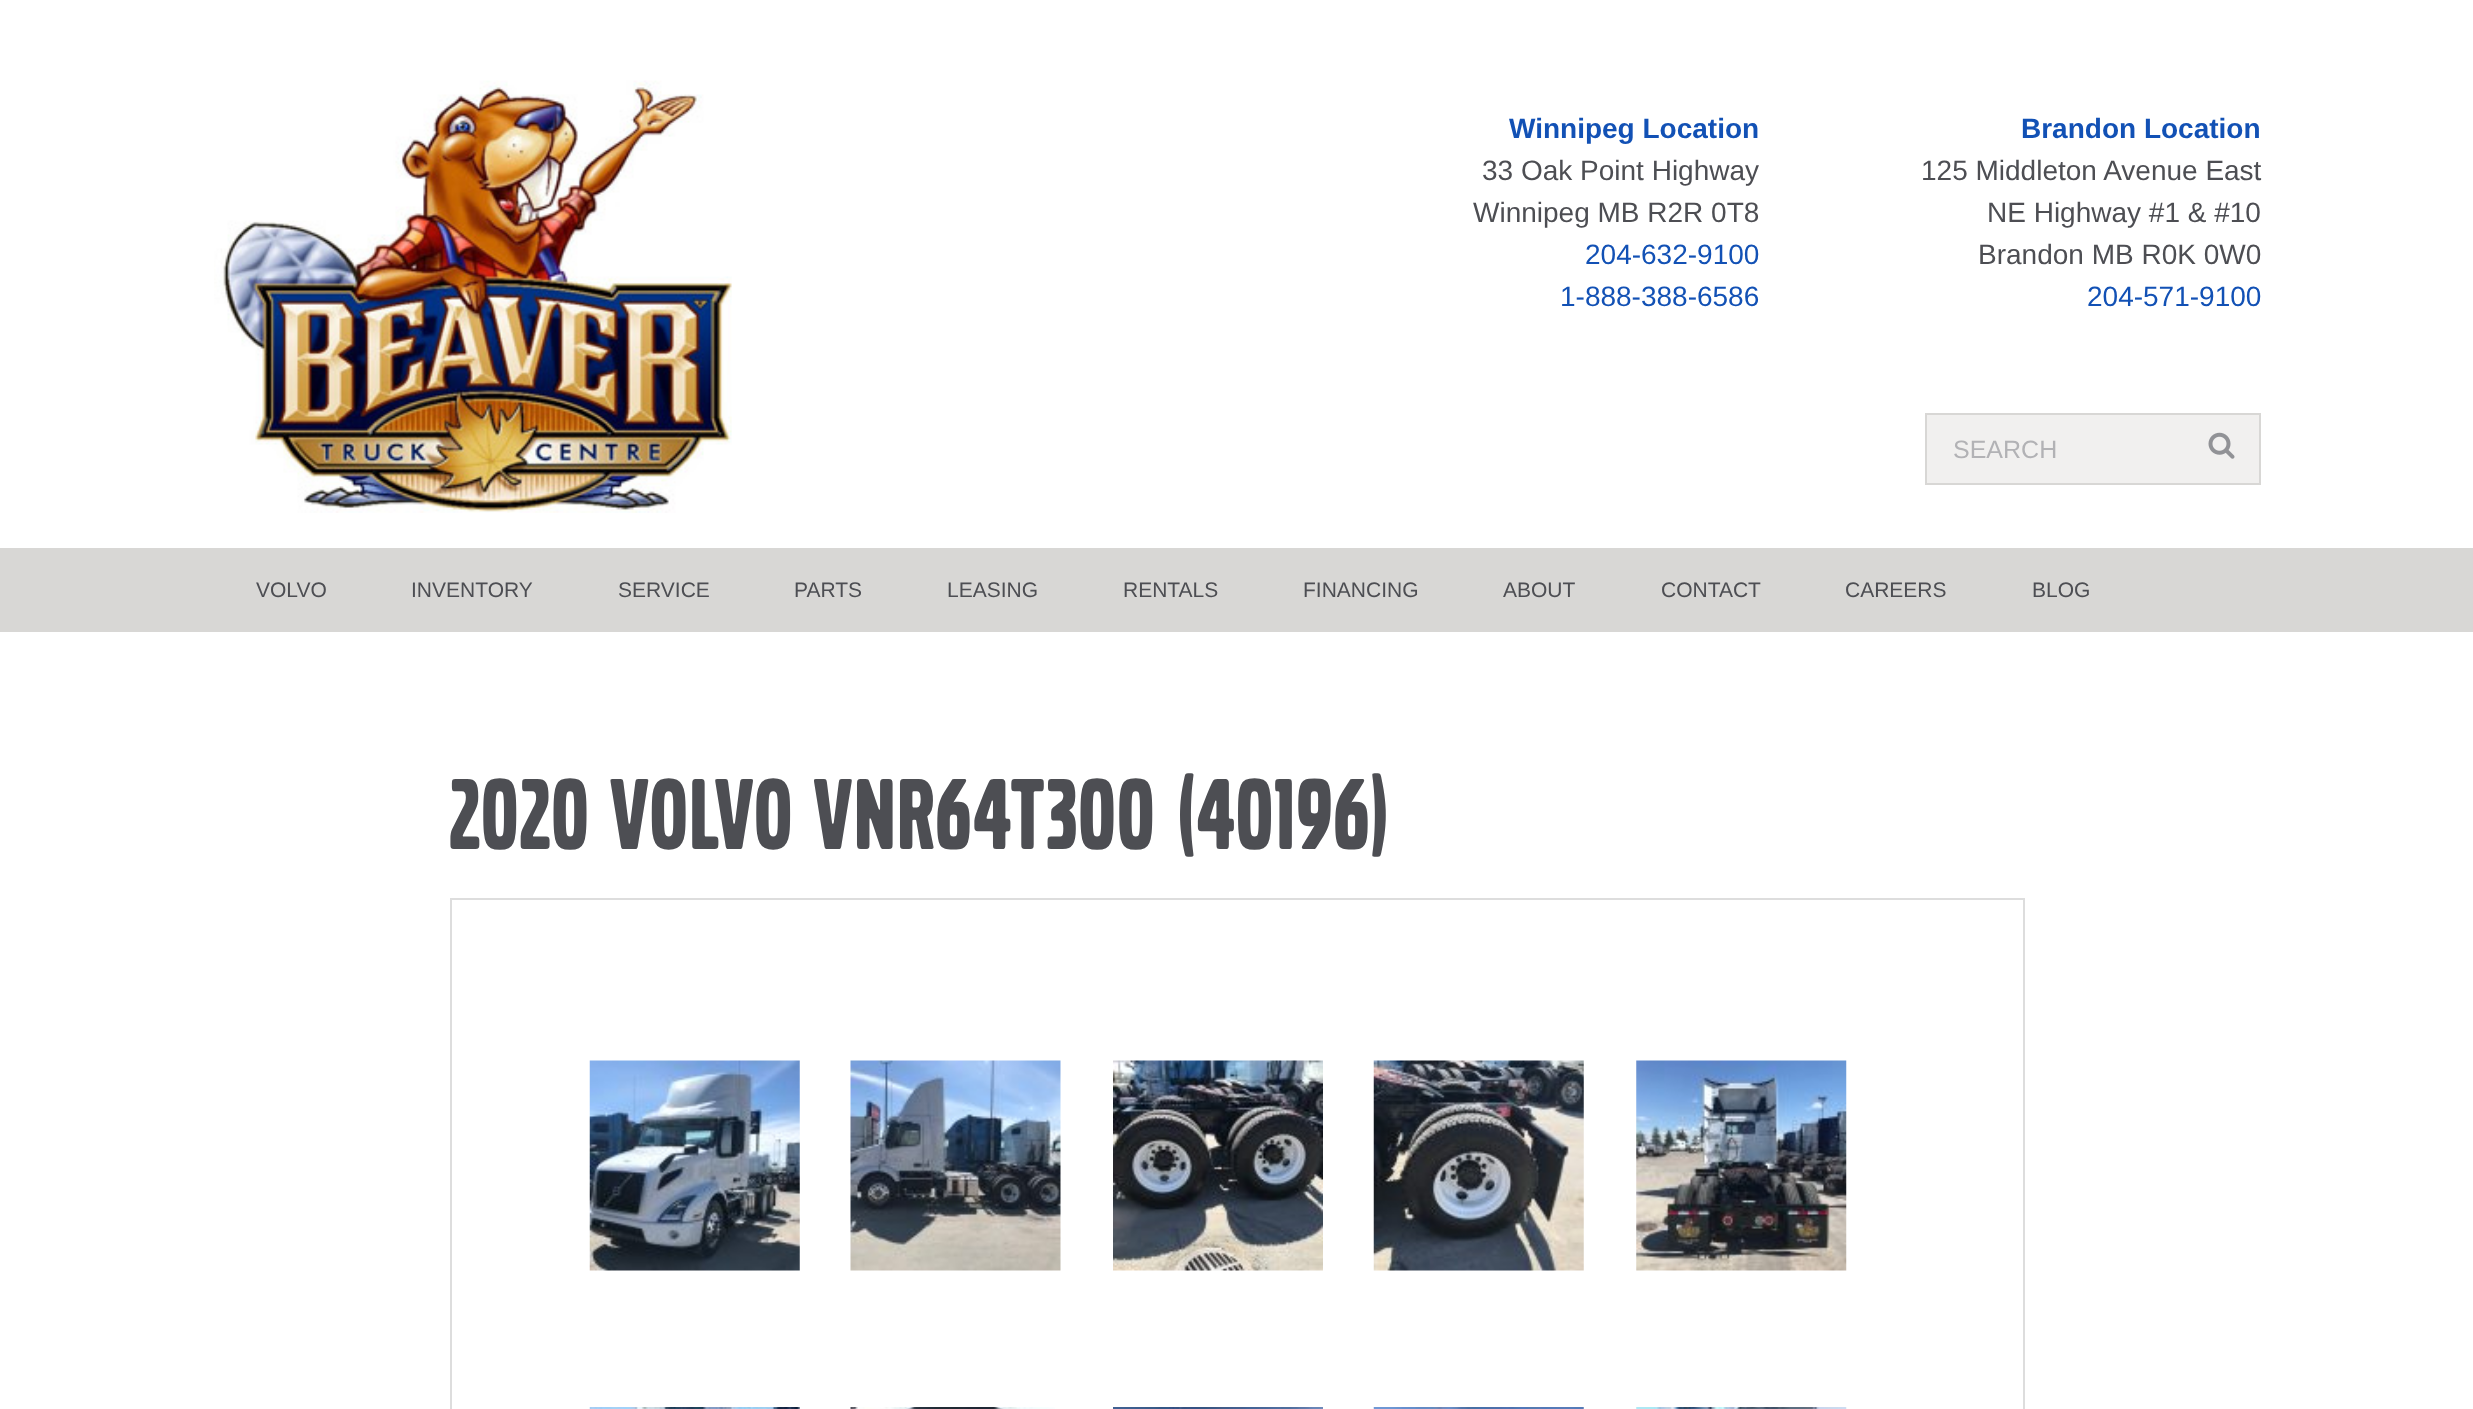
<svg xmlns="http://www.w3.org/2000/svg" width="2473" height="1409">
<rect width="100%" height="100%" fill="#fff"/>
<image x="214" y="80" width="518" height="433" href="media/1.png"/>
<text x="1509" y="138" style="font-family:Liberation Sans;font-size:28px;font-weight:bold;fill:#1251b5">Winnipeg Location</text>
<text x="1482" y="180" style="font-family:Liberation Sans;font-size:28px;fill:#4d4e53">33 Oak Point Highway</text>
<text x="1473" y="222" style="font-family:Liberation Sans;font-size:28px;fill:#4d4e53">Winnipeg MB R2R 0T8</text>
<text x="1585" y="264" style="font-family:Liberation Sans;font-size:28px;fill:#1251b5">204-632-9100</text>
<text x="1560" y="306" style="font-family:Liberation Sans;font-size:28px;fill:#1251b5">1-888-388-6586</text>
<text x="2021" y="138" style="font-family:Liberation Sans;font-size:28px;font-weight:bold;fill:#1251b5">Brandon Location</text>
<text x="1921" y="180" style="font-family:Liberation Sans;font-size:28px;fill:#4d4e53">125 Middleton Avenue East</text>
<text x="1987" y="222" style="font-family:Liberation Sans;font-size:28px;fill:#4d4e53">NE Highway #1 &amp; #10</text>
<text x="1978" y="264" style="font-family:Liberation Sans;font-size:28px;fill:#4d4e53">Brandon MB R0K 0W0</text>
<text x="2087" y="306" style="font-family:Liberation Sans;font-size:28px;fill:#1251b5">204-571-9100</text>
<rect x="1926" y="414" width="334" height="70" fill="#f1f0ef" stroke="#d8d7d5" stroke-width="2"/>
<text x="1953" y="458" style="font-family:Liberation Sans;font-size:25px;fill:#b2b2b5">SEARCH</text>
<image x="2208" y="432" width="27" height="27" href="media/2.png"/>
<rect y="548" width="2473" height="84" fill="#d8d7d5"/>
<text x="256" y="597" style="font-family:Liberation Sans;font-size:21px;fill:#4d4e53">VOLVO</text>
<text x="411" y="597" style="font-family:Liberation Sans;font-size:21px;fill:#4d4e53">INVENTORY</text>
<text x="618" y="597" style="font-family:Liberation Sans;font-size:21px;fill:#4d4e53">SERVICE</text>
<text x="794" y="597" style="font-family:Liberation Sans;font-size:21px;fill:#4d4e53">PARTS</text>
<text x="947" y="597" style="font-family:Liberation Sans;font-size:21px;fill:#4d4e53">LEASING</text>
<text x="1123" y="597" style="font-family:Liberation Sans;font-size:21px;fill:#4d4e53">RENTALS</text>
<text x="1303" y="597" style="font-family:Liberation Sans;font-size:21px;fill:#4d4e53">FINANCING</text>
<text x="1503" y="597" style="font-family:Liberation Sans;font-size:21px;fill:#4d4e53">ABOUT</text>
<text x="1661" y="597" style="font-family:Liberation Sans;font-size:21px;fill:#4d4e53">CONTACT</text>
<text x="1845" y="597" style="font-family:Liberation Sans;font-size:21px;fill:#4d4e53">CAREERS</text>
<text x="2032" y="597" style="font-family:Liberation Sans;font-size:21px;fill:#4d4e53">BLOG</text>
<text x="450" y="849" style="font-family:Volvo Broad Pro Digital;font-size:105px;font-weight:500;letter-spacing:2.1px;fill:#4d4e53">2020 VOLVO VNR64T300 (40196)</text>
<rect x="451" y="899" width="1573" height="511" fill="none" stroke="#ddd" stroke-width="2"/>
<image x="589" y="1060" width="211" height="211" href="media/3.png"/>
<image x="850" y="1060" width="211" height="211" href="media/4.png"/>
<image x="1113" y="1060" width="210" height="211" href="media/5.png"/>
<image x="1373" y="1060" width="211" height="211" href="media/6.png"/>
<image x="1636" y="1060" width="211" height="211" href="media/7.png"/>
<image x="589" y="1407" width="211" height="2" href="media/8.png"/>
<image x="850" y="1407" width="205" height="2" href="media/9.png"/>
<image x="1113" y="1407" width="210" height="2" href="media/10.png"/>
<image x="1373" y="1407" width="211" height="2" href="media/11.png"/>
<image x="1636" y="1407" width="211" height="2" href="media/12.png"/>
</svg>
